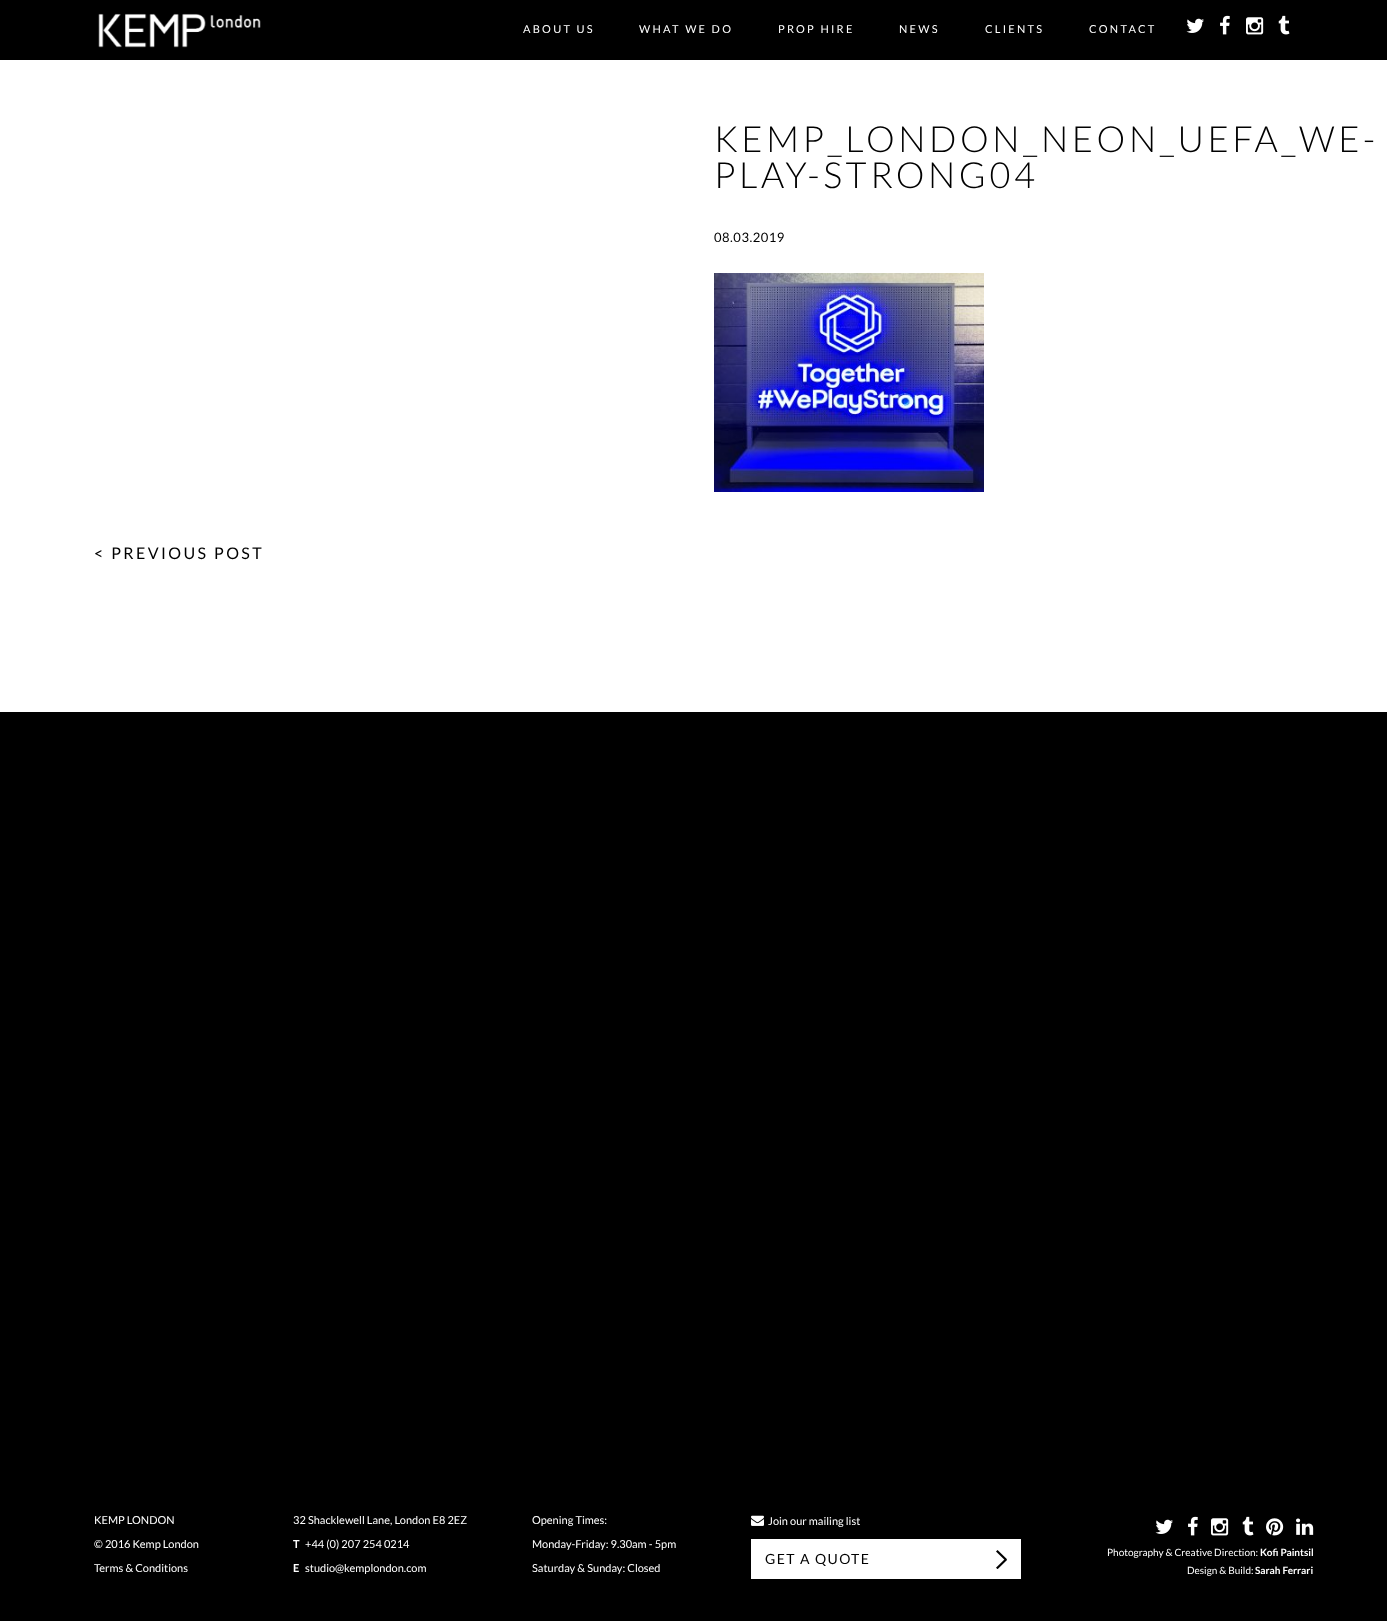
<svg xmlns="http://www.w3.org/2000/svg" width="1387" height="1621">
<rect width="100%" height="100%" fill="#000"/>
<image x="98" y="13" width="163" height="35" href="media/1.png"/>
<text x="523" y="33" style="font-family:Lato;font-size:11px;letter-spacing:2.25px;fill:#fff">ABOUT US</text>
<text x="639" y="33" style="font-family:Lato;font-size:11px;letter-spacing:2.25px;fill:#fff">WHAT WE DO</text>
<text x="778" y="33" style="font-family:Lato;font-size:11px;letter-spacing:2.25px;fill:#fff">PROP HIRE</text>
<text x="899" y="33" style="font-family:Lato;font-size:11px;letter-spacing:2.25px;fill:#fff">NEWS</text>
<text x="985" y="33" style="font-family:Lato;font-size:11px;letter-spacing:2.25px;fill:#fff">CLIENTS</text>
<text x="1089" y="33" style="font-family:Lato;font-size:11px;letter-spacing:2.25px;fill:#fff">CONTACT</text>
<image x="1186" y="18" width="18" height="15" href="media/2.png"/>
<image x="1220" y="15" width="10" height="20" href="media/3.png"/>
<image x="1246" y="17" width="18" height="18" href="media/4.png"/>
<image x="1278" y="15" width="12" height="20" href="media/5.png"/>
<rect y="60" width="1387" height="652" fill="#fff"/>
<text x="714" y="152" style="font-family:Lato;font-size:36px;font-weight:300;letter-spacing:3.6px;fill:#000">KEMP_LONDON_NEON_UEFA_WE-</text>
<text x="714" y="188" style="font-family:Lato;font-size:36px;font-weight:300;letter-spacing:3.6px;fill:#000">PLAY-STRONG04</text>
<text x="714" y="242" style="font-family:Lato;font-size:13px;letter-spacing:0.5px;fill:#000">08.03.2019</text>
<image x="714" y="273" width="270" height="219" href="media/6.png"/>
<text x="94" y="559" style="font-family:Lato;font-size:16px;letter-spacing:2.4px;fill:#000">&lt; PREVIOUS POST</text>
<text x="94" y="1524" style="font-family:Lato;font-size:11px;fill:#fff">KEMP LONDON</text>
<text x="94" y="1548" style="font-family:Lato;font-size:11px;fill:#fff">© 2016 Kemp London</text>
<text x="94" y="1572" style="font-family:Lato;font-size:11px;fill:#fff">Terms &amp; Conditions</text>
<text x="293" y="1524" style="font-family:Lato;font-size:11px;fill:#fff">32 Shacklewell Lane, London E8 2EZ</text>
<text x="293" y="1548" style="font-family:Lato;font-size:11px;font-weight:bold;fill:#fff">T</text>
<text x="305" y="1548" style="font-family:Lato;font-size:11px;fill:#fff">+44 (0) 207 254 0214</text>
<text x="293" y="1572" style="font-family:Lato;font-size:11px;font-weight:bold;fill:#fff">E</text>
<text x="305" y="1572" style="font-family:Lato;font-size:11px;fill:#fff">studio@kemplondon.com</text>
<text x="532" y="1524" style="font-family:Lato;font-size:11px;fill:#fff">Opening Times:</text>
<text x="532" y="1548" style="font-family:Lato;font-size:11px;fill:#fff">Monday-Friday: 9.30am - 5pm</text>
<text x="532" y="1572" style="font-family:Lato;font-size:11px;fill:#fff">Saturday &amp; Sunday: Closed</text>
<image x="751" y="1515" width="13" height="11" href="media/7.png"/>
<text x="768" y="1525" style="font-family:Lato;font-size:11px;fill:#fff">Join our mailing list</text>
<rect x="751" y="1539" width="270" height="40" fill="#fff"/>
<image x="996" y="1550" width="11" height="19" href="media/8.png"/>
<text x="765" y="1564" style="font-family:Lato;font-size:14px;letter-spacing:1.4px;fill:#000">GET A QUOTE</text>
<image x="1155" y="1519" width="18" height="15" href="media/2.png"/>
<image x="1188" y="1516" width="10" height="20" href="media/3.png"/>
<image x="1211" y="1518" width="18" height="18" href="media/4.png"/>
<image x="1242" y="1516" width="12" height="20" href="media/5.png"/>
<image x="1266" y="1518" width="18" height="18" href="media/9.png"/>
<image x="1296" y="1518" width="18" height="17" href="media/10.png"/>
<text x="1107" y="1556" style="font-family:Lato;font-size:10px;fill:#fff">Photography &amp; Creative Direction:</text>
<text x="1260" y="1556" style="font-family:Lato;font-size:10px;font-weight:bold;fill:#fff">Kofi Paintsil</text>
<text x="1187" y="1574" style="font-family:Lato;font-size:10px;fill:#fff">Design &amp; Build:</text>
<text x="1255" y="1574" style="font-family:Lato;font-size:10px;font-weight:bold;fill:#fff">Sarah Ferrari</text>
</svg>
